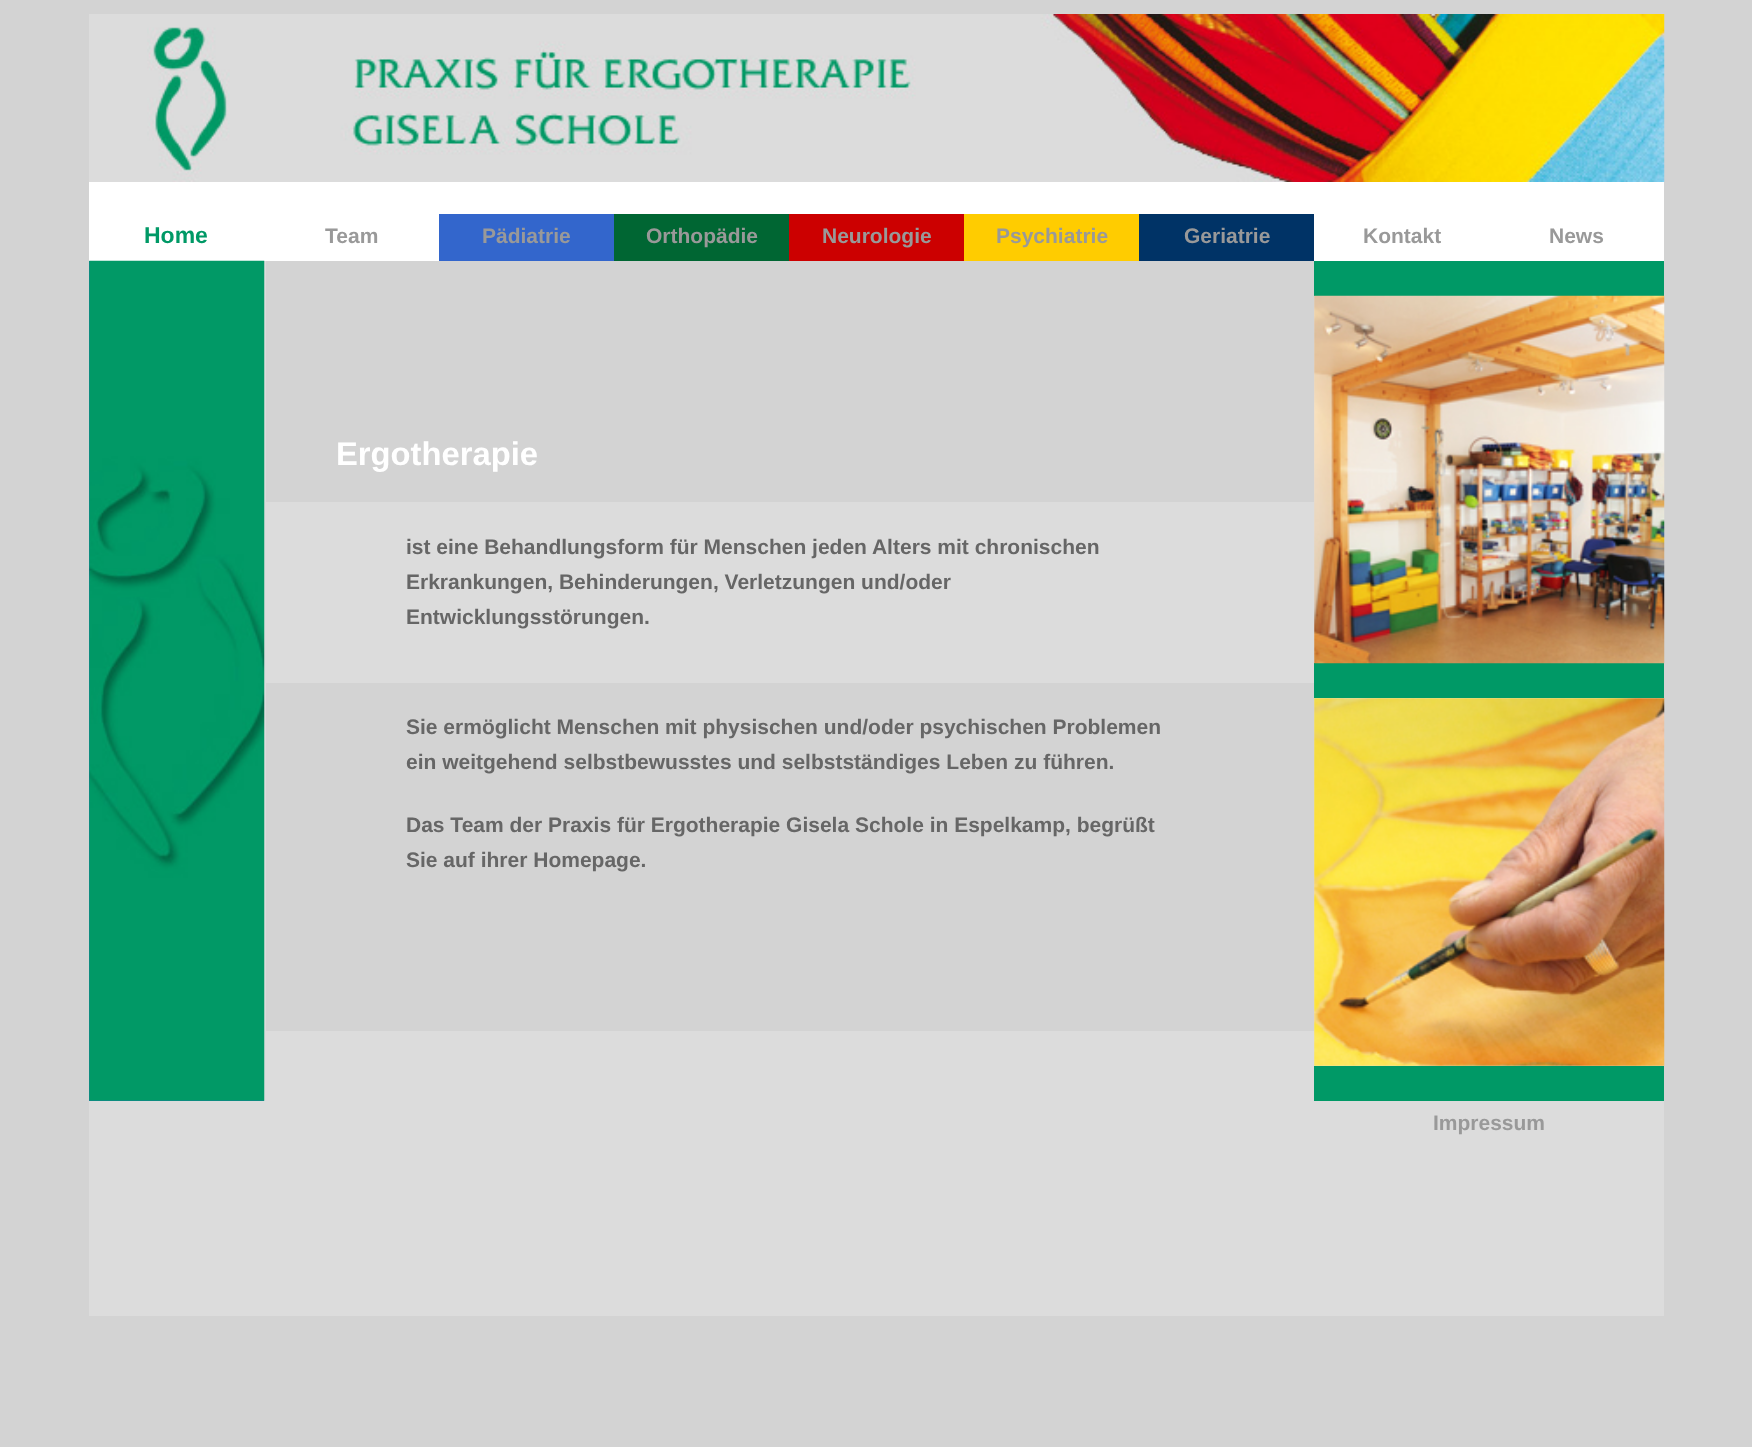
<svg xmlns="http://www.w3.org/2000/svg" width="1752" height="1447">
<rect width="100%" height="100%" fill="#d3d3d3"/>
<rect x="89" y="14" width="1575" height="1302" fill="#dcdcdc"/>
<image x="147" y="14" width="1518" height="168" href="media/1.png"/>
<rect x="89" y="182" width="1575" height="32" fill="#fff"/>
<rect x="89" y="214" width="350" height="47" fill="#fff"/>
<text x="144" y="243" style="font-family:Liberation Sans;font-size:23px;font-weight:bold;fill:#096">Home</text>
<text x="325" y="243" style="font-family:Liberation Sans;font-size:21px;font-weight:bold;fill:#999">Team</text>
<rect x="439" y="214" width="175" height="47" fill="#36c"/>
<text x="482" y="243" style="font-family:Liberation Sans;font-size:21px;font-weight:bold;fill:#999">Pädiatrie</text>
<rect x="614" y="214" width="175" height="47" fill="#063"/>
<text x="646" y="243" style="font-family:Liberation Sans;font-size:21px;font-weight:bold;fill:#999">Orthopädie</text>
<rect x="789" y="214" width="175" height="47" fill="#c00"/>
<text x="822" y="243" style="font-family:Liberation Sans;font-size:21px;font-weight:bold;fill:#999">Neurologie</text>
<rect x="964" y="214" width="175" height="47" fill="#fc0"/>
<text x="996" y="243" style="font-family:Liberation Sans;font-size:21px;font-weight:bold;fill:#999">Psychiatrie</text>
<rect x="1139" y="214" width="175" height="47" fill="#036"/>
<text x="1184" y="243" style="font-family:Liberation Sans;font-size:21px;font-weight:bold;fill:#999">Geriatrie</text>
<rect x="1314" y="214" width="350" height="47" fill="#fff"/>
<text x="1363" y="243" style="font-family:Liberation Sans;font-size:21px;font-weight:bold;fill:#999">Kontakt</text>
<text x="1549" y="243" style="font-family:Liberation Sans;font-size:21px;font-weight:bold;fill:#999">News</text>
<rect x="89" y="261" width="175" height="840" fill="#36c"/>
<image x="89" y="260" width="176" height="841" href="media/2.png"/>
<rect x="266" y="261" width="1048" height="241" fill="#d3d3d3"/>
<text x="336" y="465" style="font-family:Liberation Sans;font-size:32.75px;font-weight:bold;fill:#fff">Ergotherapie</text>
<rect x="1314" y="261" width="350" height="35" fill="#096"/>
<rect x="1314" y="663" width="350" height="35" fill="#096"/>
<image x="1314" y="295" width="351" height="369" href="media/3.png"/>
<image x="1314" y="698" width="351" height="368" href="media/4.png"/>
<rect x="1314" y="1066" width="350" height="35" fill="#096"/>
<text x="1433" y="1130" style="font-family:Liberation Sans;font-size:21px;font-weight:bold;fill:#999">Impressum</text>
<text x="406" y="554" style="font-family:Liberation Sans;font-size:21px;font-weight:bold;fill:#666">ist eine Behandlungsform für Menschen jeden Alters mit chronischen</text>
<text x="406" y="589" style="font-family:Liberation Sans;font-size:21px;font-weight:bold;fill:#666">Erkrankungen, Behinderungen, Verletzungen und/oder</text>
<text x="406" y="624" style="font-family:Liberation Sans;font-size:21px;font-weight:bold;fill:#666">Entwicklungsstörungen.</text>
<rect x="266" y="683" width="1048" height="348" fill="#d3d3d3"/>
<text x="406" y="734" style="font-family:Liberation Sans;font-size:21px;font-weight:bold;fill:#666">Sie ermöglicht Menschen mit physischen und/oder psychischen Problemen</text>
<text x="406" y="769" style="font-family:Liberation Sans;font-size:21px;font-weight:bold;fill:#666">ein weitgehend selbstbewusstes und selbstständiges Leben zu führen.</text>
<text x="406" y="832" style="font-family:Liberation Sans;font-size:21px;font-weight:bold;fill:#666">Das Team der Praxis für Ergotherapie Gisela Schole in Espelkamp, begrüßt</text>
<text x="406" y="867" style="font-family:Liberation Sans;font-size:21px;font-weight:bold;fill:#666">Sie auf ihrer Homepage.</text>
</svg>
